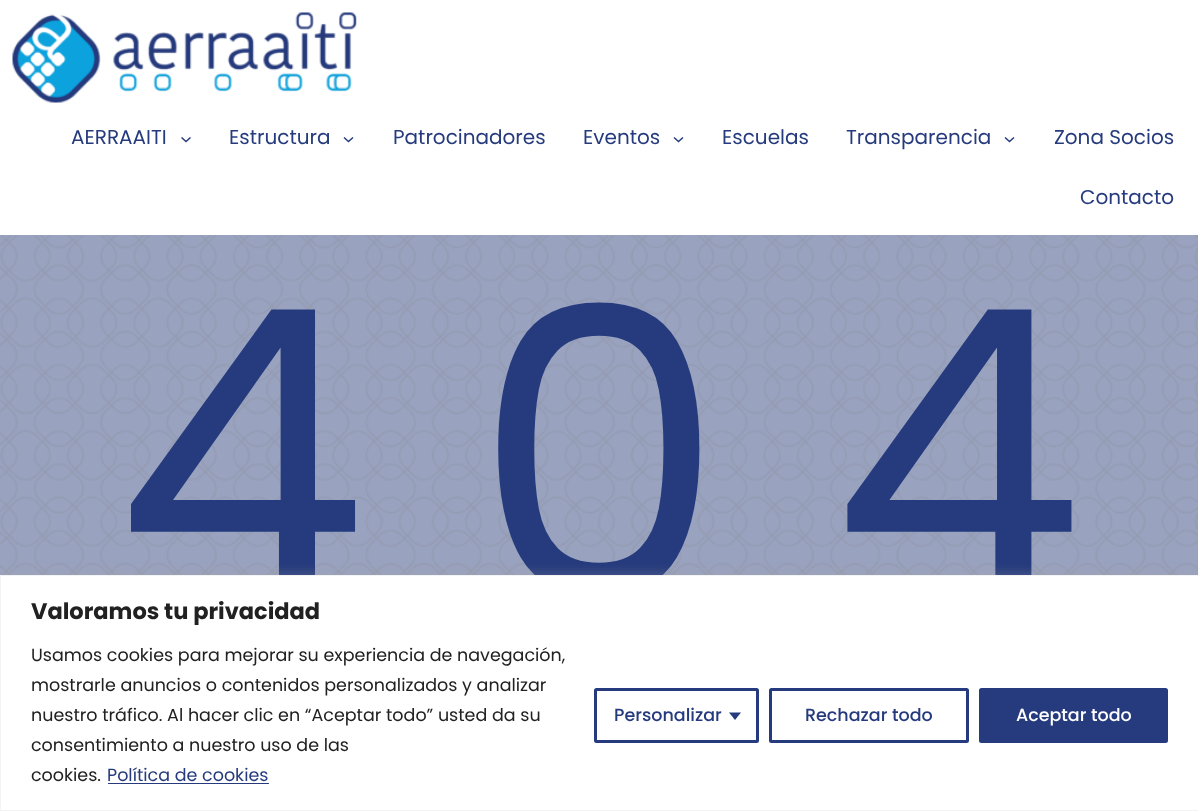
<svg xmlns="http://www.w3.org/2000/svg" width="1198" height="811">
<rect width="100%" height="100%" fill="#fff"/>
<image x="12" y="12" width="345" height="91" href="media/1.png"/>
<text x="71" y="144" style="font-family:Poppins;font-size:20px;fill:#263b7d">AERRAAITI</text>
<path d="M181.5 137.5l4.5 4l4.5-4" fill="none" stroke="#263b7d" stroke-width="1.5"/>
<text x="229" y="144" style="font-family:Poppins;font-size:20px;fill:#263b7d">Estructura</text>
<path d="M344 137.5l4.5 4l4.5-4" fill="none" stroke="#263b7d" stroke-width="1.5"/>
<text x="393" y="144" style="font-family:Poppins;font-size:20px;fill:#263b7d">Patrocinadores</text>
<text x="583" y="144" style="font-family:Poppins;font-size:20px;fill:#263b7d">Eventos</text>
<path d="M674 137.5l4.5 4l4.5-4" fill="none" stroke="#263b7d" stroke-width="1.5"/>
<text x="722" y="144" style="font-family:Poppins;font-size:20px;fill:#263b7d">Escuelas</text>
<text x="846" y="144" style="font-family:Poppins;font-size:20px;fill:#263b7d">Transparencia</text>
<path d="M1005 137.5l4.5 4l4.5-4" fill="none" stroke="#263b7d" stroke-width="1.5"/>
<text x="1054" y="144" style="font-family:Poppins;font-size:20px;fill:#263b7d">Zona Socios</text>
<text x="1080" y="204" style="font-family:Poppins;font-size:20px;fill:#263b7d">Contacto</text>
<image x="0" y="235" width="1198" height="340" href="media/2.png"/>
<text x="115" y="596" style="font-family:Poppins;font-size:400px;fill:#263b7d">4 0 4</text>
<rect y="574" width="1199" height="236" fill="#acabab4d" filter="blur(6px)"/>
<rect x="0.5" y="575.5" width="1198" height="235" fill="#fff" stroke="#f4f4f4"/>
<text x="31" y="619" style="font-family:Poppins;font-size:22.5px;font-weight:bold;fill:#212121">Valoramos tu privacidad</text>
<text x="31" y="661" style="font-family:Poppins;font-size:17.5px;fill:#212121">Usamos cookies para mejorar su experiencia de navegación,</text>
<text x="31" y="691" style="font-family:Poppins;font-size:17.5px;fill:#212121">mostrarle anuncios o contenidos personalizados y analizar</text>
<text x="31" y="721" style="font-family:Poppins;font-size:17.5px;fill:#212121">nuestro tráfico. Al hacer clic en “Aceptar todo” usted da su</text>
<text x="31" y="751" style="font-family:Poppins;font-size:17.5px;fill:#212121">consentimiento a nuestro uso de las</text>
<text x="31" y="781" style="font-family:Poppins;font-size:17.5px;fill:#212121">cookies.</text>
<text x="107" y="781" style="font-family:Poppins;font-size:17.5px;fill:#263b7d">Política de cookies</text>
<rect x="108" y="783" width="161" height="1" fill="#263b7d"/>
<rect x="595.5" y="689.5" width="162" height="52" rx="1" fill="none" stroke="#263b7d" stroke-width="3"/>
<text x="614" y="721" style="font-family:Poppins;font-size:17.5px;font-weight:500;fill:#263b7d">Personalizar</text>
<path d="M729 712.5h12l-6 7.5z" fill="#263b7d"/>
<rect x="770.5" y="689.5" width="197" height="52" rx="1" fill="none" stroke="#263b7d" stroke-width="3"/>
<text x="805" y="721" style="font-family:Poppins;font-size:17.5px;font-weight:500;fill:#263b7d">Rechazar todo</text>
<rect x="980.5" y="689.5" width="186" height="52" rx="1" fill="#263b7d" stroke="#263b7d" stroke-width="3"/>
<text x="1016" y="721" style="font-family:Poppins;font-size:17.5px;font-weight:500;fill:#fff">Aceptar todo</text>
</svg>
